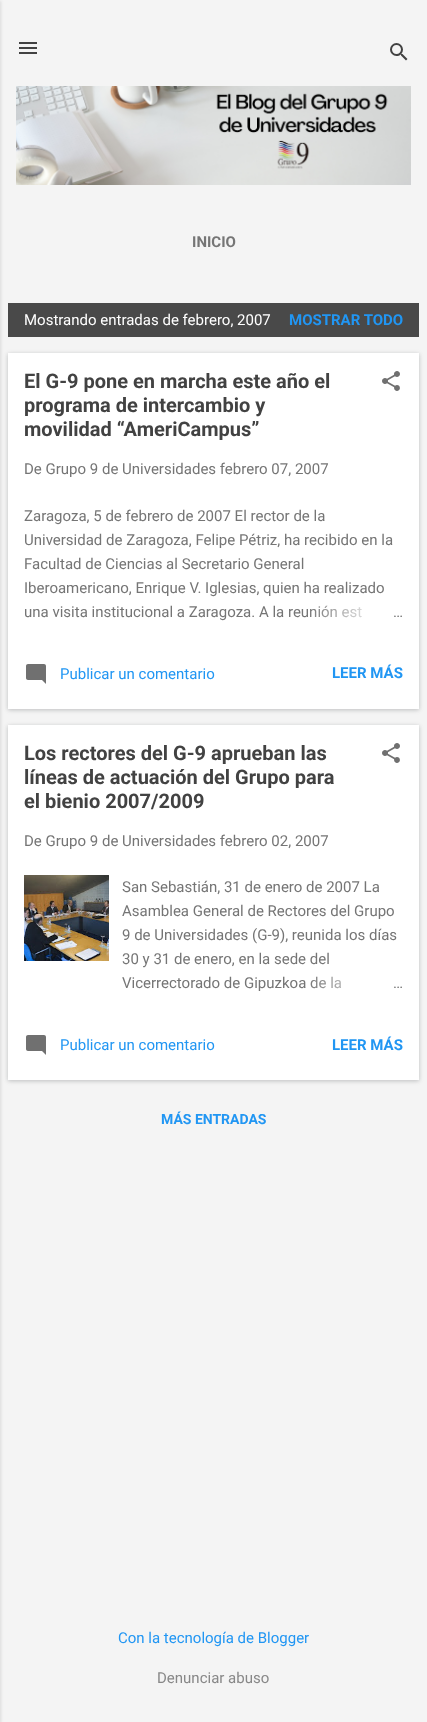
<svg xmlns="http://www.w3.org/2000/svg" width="427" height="1722">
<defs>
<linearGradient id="g1" gradientUnits="userSpaceOnUse" x1="403" y1="612" x2="307" y2="612"><stop offset="0" stop-color="#fff"/><stop offset="0.2" stop-color="#fff"/><stop offset="1" stop-color="#fff" stop-opacity="0"/></linearGradient>
<linearGradient id="g2" gradientUnits="userSpaceOnUse" x1="403" y1="983" x2="307" y2="983"><stop offset="0" stop-color="#fff"/><stop offset="0.2" stop-color="#fff"/><stop offset="1" stop-color="#fff" stop-opacity="0"/></linearGradient>
</defs>
<rect width="100%" height="100%" fill="#f4f4f4"/>
<rect x="-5" y="1" width="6" height="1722" fill="#0000001a" filter="blur(1.5px)"/>
<image x="19" y="42" width="18" height="12" href="media/1.png"/>
<image x="390" y="43" width="18" height="18" href="media/2.png"/>
<image x="16" y="86" width="395" height="99" href="media/3.png"/>
<text x="192" y="247" style="font-family:Roboto;font-size:15px;font-weight:bold;fill:#757575">INICIO</text>
<rect x="8" y="303" width="411" height="34" fill="#494949"/>
<text x="24" y="325" style="font-family:Roboto;font-size:15px;fill:#fff">Mostrando entradas de febrero, 2007</text>
<text x="289" y="325" style="font-family:Roboto;font-size:15px;font-weight:bold;fill:#2196f3">MOSTRAR TODO</text>
<rect x="8" y="354" width="411" height="356" fill="#3c40434d" filter="blur(2px)"/>
<rect x="8" y="353" width="411" height="356" fill="#fff"/>
<text x="24" y="388" style="font-family:Roboto;font-size:20px;font-weight:bold;fill:#424242">El G-9 pone en marcha este año el</text>
<text x="24" y="412" style="font-family:Roboto;font-size:20px;font-weight:bold;fill:#424242">programa de intercambio y</text>
<text x="24" y="436" style="font-family:Roboto;font-size:20px;font-weight:bold;fill:#424242">movilidad “AmeriCampus”</text>
<image x="382" y="371" width="18" height="20" href="media/4.png"/>
<text x="24" y="474" style="font-family:Roboto;font-size:15px;fill:#757575">De Grupo 9 de Universidades febrero 07, 2007</text>
<text x="24" y="521" style="font-family:Roboto;font-size:15px;fill:#757575">Zaragoza, 5 de febrero de 2007 El rector de la</text>
<text x="24" y="545" style="font-family:Roboto;font-size:15px;fill:#757575">Universidad de Zaragoza, Felipe Pétriz, ha recibido en la</text>
<text x="24" y="569" style="font-family:Roboto;font-size:15px;fill:#757575">Facultad de Ciencias al Secretario General</text>
<text x="24" y="593" style="font-family:Roboto;font-size:15px;fill:#757575">Iberoamericano, Enrique V. Iglesias, quien ha realizado</text>
<text x="24" y="617" style="font-family:Roboto;font-size:15px;fill:#757575">una visita institucional a Zaragoza. A la reunión est</text>
<rect x="310" y="605" width="52" height="13" fill="url(#g1)"/>
<text x="393" y="617" style="font-family:Roboto;font-size:15px;fill:#757575">…</text>
<image x="26" y="664" width="20" height="20" href="media/5.png"/>
<text x="60" y="679" style="font-family:Roboto;font-size:15px;fill:#2196f3">Publicar un comentario</text>
<text x="332" y="678" style="font-family:Roboto;font-size:15px;font-weight:bold;fill:#2196f3">LEER MÁS</text>
<rect x="8" y="726" width="411" height="355" fill="#3c40434d" filter="blur(2px)"/>
<rect x="8" y="725" width="411" height="355" fill="#fff"/>
<text x="24" y="760" style="font-family:Roboto;font-size:20px;font-weight:bold;fill:#424242">Los rectores del G-9 aprueban las</text>
<text x="24" y="784" style="font-family:Roboto;font-size:20px;font-weight:bold;fill:#424242">líneas de actuación del Grupo para</text>
<text x="24" y="808" style="font-family:Roboto;font-size:20px;font-weight:bold;fill:#424242">el bienio 2007/2009</text>
<image x="382" y="743" width="18" height="20" href="media/4.png"/>
<text x="24" y="846" style="font-family:Roboto;font-size:15px;fill:#757575">De Grupo 9 de Universidades febrero 02, 2007</text>
<image x="24" y="875" width="85" height="86" href="media/6.png"/>
<text x="122" y="892" style="font-family:Roboto;font-size:15px;fill:#757575">San Sebastián, 31 de enero de 2007 La</text>
<text x="122" y="916" style="font-family:Roboto;font-size:15px;fill:#757575">Asamblea General de Rectores del Grupo</text>
<text x="122" y="940" style="font-family:Roboto;font-size:15px;fill:#757575">9 de Universidades (G-9), reunida los días</text>
<text x="122" y="964" style="font-family:Roboto;font-size:15px;fill:#757575">30 y 31 de enero, en la sede del</text>
<text x="122" y="988" style="font-family:Roboto;font-size:15px;fill:#757575">Vicerrectorado de Gipuzkoa de la</text>
<rect x="311" y="976" width="31" height="13" fill="url(#g2)"/>
<text x="393" y="988" style="font-family:Roboto;font-size:15px;fill:#757575">…</text>
<image x="26" y="1035" width="20" height="20" href="media/5.png"/>
<text x="60" y="1050" style="font-family:Roboto;font-size:15px;fill:#2196f3">Publicar un comentario</text>
<text x="332" y="1050" style="font-family:Roboto;font-size:15px;font-weight:bold;fill:#2196f3">LEER MÁS</text>
<text x="161" y="1124" style="font-family:Roboto;font-size:14px;font-weight:bold;fill:#2196f3">MÁS ENTRADAS</text>
<text x="118" y="1643" style="font-family:Roboto;font-size:15px;fill:#2196f3">Con la tecnología de Blogger</text>
<text x="157" y="1683" style="font-family:Roboto;font-size:15px;fill:#888">Denunciar abuso</text>
</svg>
